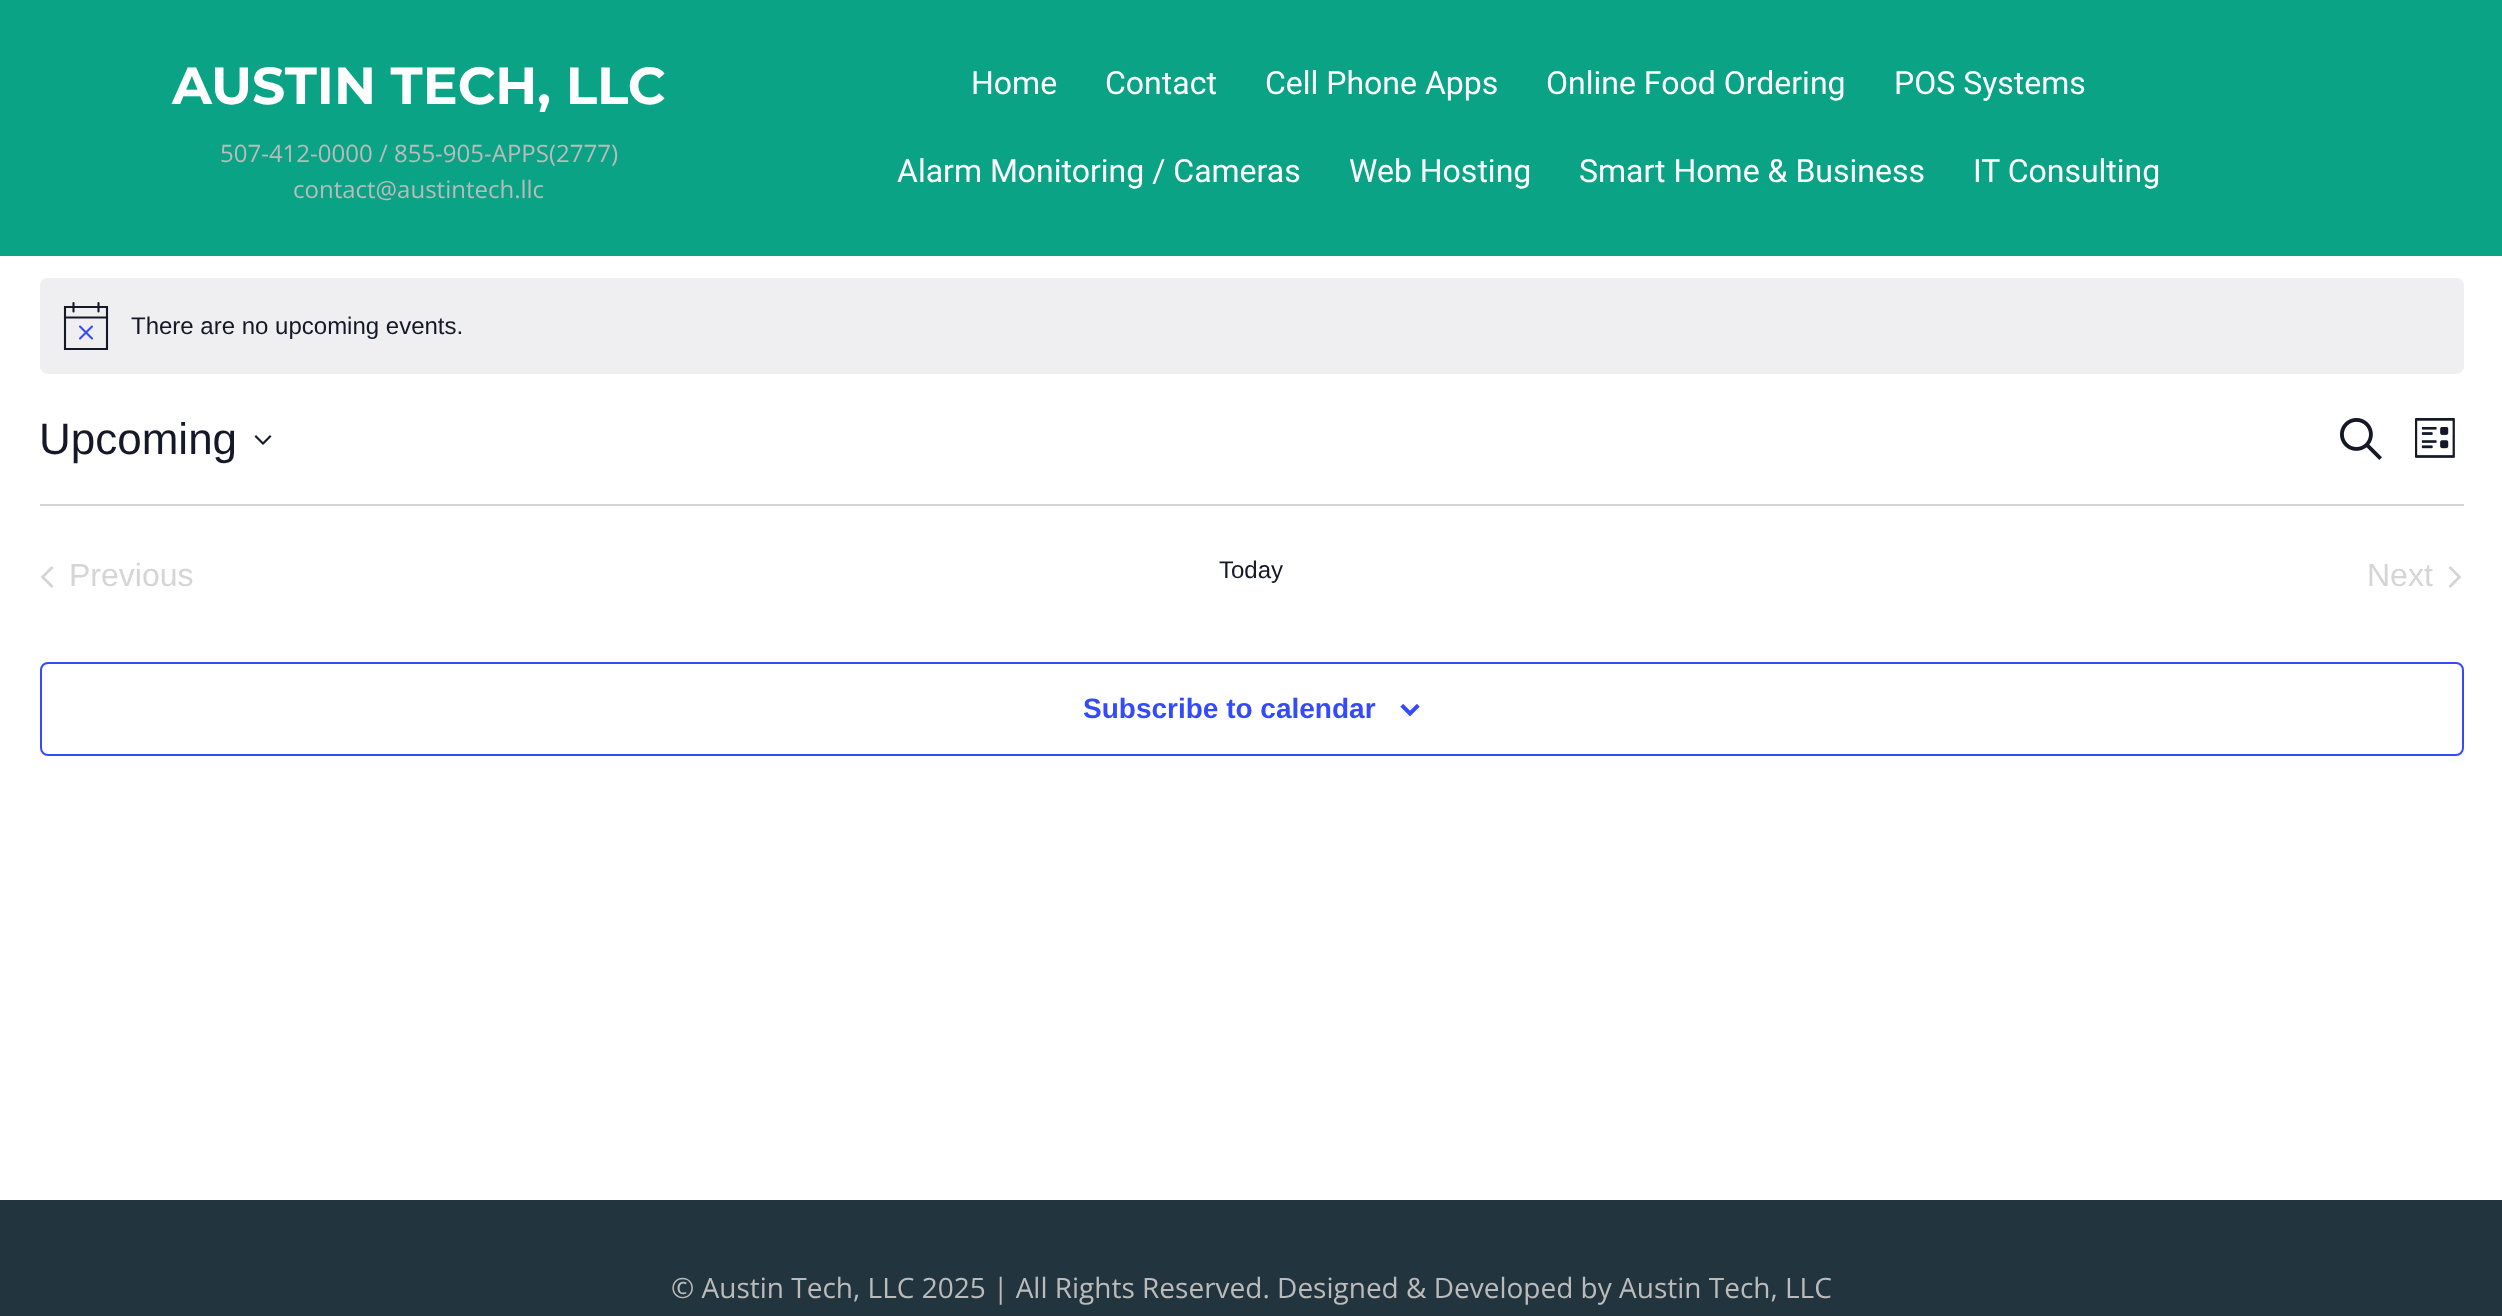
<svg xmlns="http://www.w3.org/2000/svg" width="2502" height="1316">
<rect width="100%" height="100%" fill="#fff"/>
<rect width="2502" height="256" fill="#0aa385"/>
<text x="172" y="104" style="font-family:Montserrat;font-size:52px;font-weight:bold;fill:#fff">AUSTIN TECH, LLC</text>
<text x="220" y="162" style="font-family:Open Sans;font-size:24px;fill:#bbb">507-412-0000 / 855-905-APPS(2777)</text>
<text x="293" y="198" style="font-family:Open Sans;font-size:24px;fill:#bbb">contact@austintech.llc</text>
<text x="971" y="94" style="font-family:Roboto;font-size:32px;fill:#fff">Home</text>
<text x="1105" y="94" style="font-family:Roboto;font-size:32px;fill:#fff">Contact</text>
<text x="1265" y="94" style="font-family:Roboto;font-size:32px;fill:#fff">Cell Phone Apps</text>
<text x="1546" y="94" style="font-family:Roboto;font-size:32px;fill:#fff">Online Food Ordering</text>
<text x="1894" y="94" style="font-family:Roboto;font-size:32px;fill:#fff">POS Systems</text>
<text x="897" y="182" style="font-family:Roboto;font-size:32px;fill:#fff">Alarm Monitoring / Cameras</text>
<text x="1349" y="182" style="font-family:Roboto;font-size:32px;fill:#fff">Web Hosting</text>
<text x="1579" y="182" style="font-family:Roboto;font-size:32px;fill:#fff">Smart Home &amp; Business</text>
<text x="1973" y="182" style="font-family:Roboto;font-size:32px;fill:#fff">IT Consulting</text>
<rect x="40" y="278" width="2424" height="96" rx="8" fill="#efeff1"/>
<path d="M65 307h42v42h-42z" fill="none" stroke="#141827" stroke-width="2.1"/>
<path d="M80 326.5l12 12m0-12l-12 12" fill="none" stroke="#334aff" stroke-width="2.1" stroke-linecap="round"/>
<path d="M73.5 303v8.5m25-8.5v8.5" fill="none" stroke="#141827" stroke-width="2.1" stroke-linecap="round"/>
<path d="M65 317.5h42" fill="none" stroke="#141827" stroke-width="2.1" stroke-linecap="square"/>
<text x="131" y="334" style="font-family:Liberation Sans;font-size:24px;fill:#141827">There are no upcoming events.</text>
<text x="39" y="454" style="font-family:Liberation Sans;font-size:44px;fill:#141827">Upcoming</text>
<path d="M256 435l7 7l7-7l1.5 1.5l-8.5 8.5l-8.5-8.5z" fill="#141827" fill-rule="evenodd"/>
<image x="2340" y="418" width="42" height="42" href="media/1.png"/>
<image x="2415" y="418" width="40" height="40" href="media/2.png"/>
<rect x="40" y="504" width="2424" height="2" fill="#d5d5d5"/>
<path d="M53.5 586l-2 2l-11-11l11-11l2 2l-9 9z" fill="#d5d5d5"/>
<text x="69" y="586" style="font-family:Liberation Sans;font-size:32px;fill:#d5d5d5">Previous</text>
<text x="1219" y="578" style="font-family:Liberation Sans;font-size:24px;fill:#141827">Today</text>
<text x="2367" y="586" style="font-family:Liberation Sans;font-size:32px;fill:#d5d5d5">Next</text>
<path d="M2448.5 568l2-2l11 11l-11 11l-2-2l9-9z" fill="#d5d5d5"/>
<rect x="41" y="663" width="2422" height="92" rx="7" fill="none" stroke="#334aff" stroke-width="2"/>
<text x="1083" y="718" style="font-family:Liberation Sans;font-size:28px;font-weight:bold;fill:#334aff">Subscribe to calendar</text>
<image x="1400" y="704" width="20" height="12" href="media/3.png"/>
<rect y="1200" width="2502" height="116" fill="#22353f"/>
<text x="671" y="1298" style="font-family:Open Sans;font-size:28px;fill:#bbb">© Austin Tech, LLC 2025 | All Rights Reserved. Designed &amp; Developed by Austin Tech, LLC</text>
</svg>
